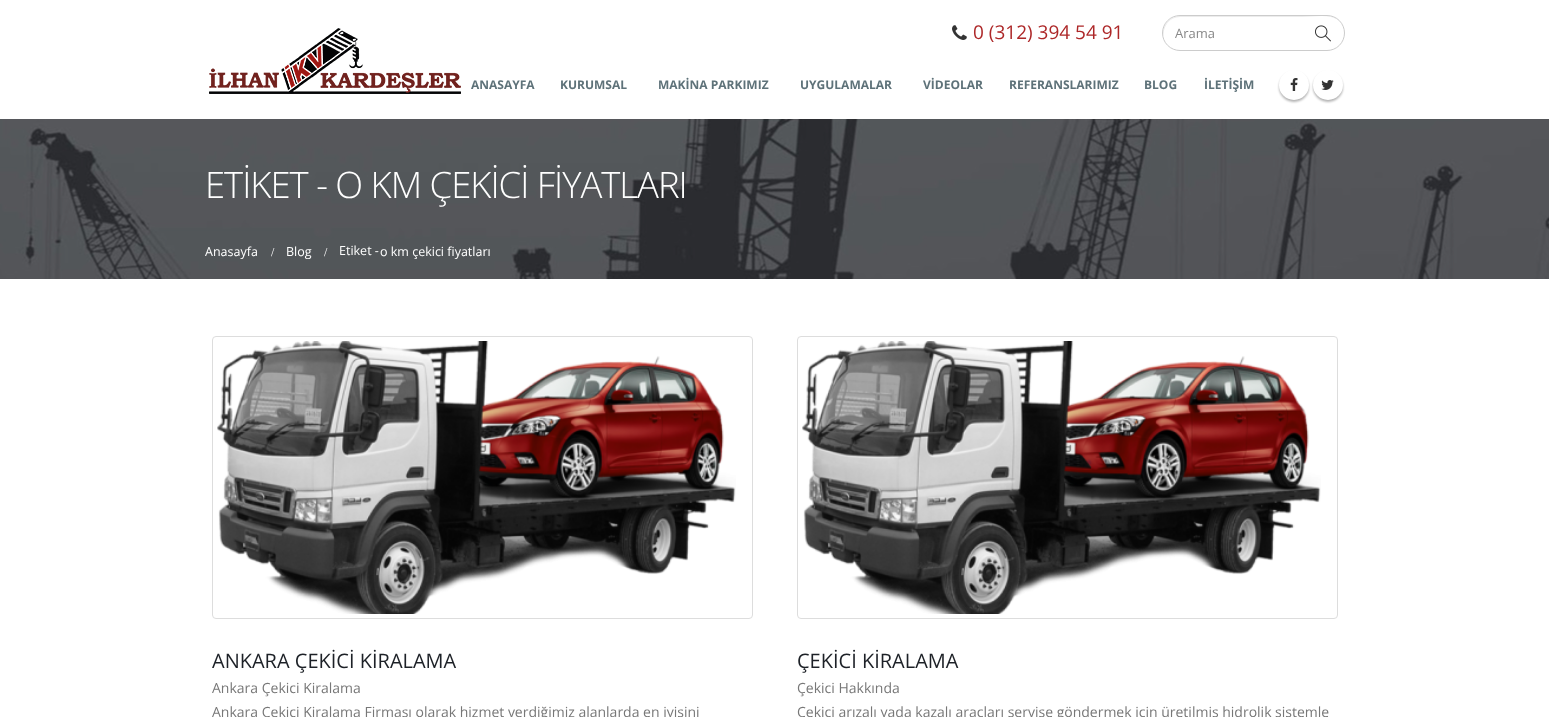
<svg xmlns="http://www.w3.org/2000/svg" width="1549" height="717">
<rect width="100%" height="100%" fill="#fff"/>
<image x="209" y="28" width="252" height="66" href="media/1.png"/>
<image x="952" y="25" width="15" height="15" href="media/2.png"/>
<text x="973" y="39" style="font-family:Open Sans;font-size:19px;fill:#ad2728">0 (312) 394 54 91</text>
<path d="M1180 17h122c10 0 20-2 29 0c4 1 8 3 10 6c-3-4-8-7-14-7h-147c-9 0-17 8-17 17l1 5c-2-9 4-21 16-21z" fill="#ececec"/>
<rect x="1162.5" y="15.5" width="182" height="35" rx="17.5" fill="none" stroke="#ccc"/>
<text x="1175" y="38" style="font-family:Open Sans;font-size:13px;fill:#888">Arama</text>
<image x="1315" y="25" width="16" height="17" href="media/3.png"/>
<text x="471" y="89" style="font-family:Open Sans;font-size:12px;font-weight:bold;fill:#5e7279">ANASAYFA</text>
<text x="560" y="89" style="font-family:Open Sans;font-size:12px;font-weight:bold;fill:#5e7279">KURUMSAL</text>
<text x="658" y="89" style="font-family:Open Sans;font-size:12px;font-weight:bold;fill:#5e7279">MAKİNA PARKIMIZ</text>
<text x="800" y="89" style="font-family:Open Sans;font-size:12px;font-weight:bold;fill:#5e7279">UYGULAMALAR</text>
<text x="923" y="89" style="font-family:Open Sans;font-size:12px;font-weight:bold;fill:#5e7279">VİDEOLAR</text>
<text x="1009" y="89" style="font-family:Open Sans;font-size:12px;font-weight:bold;fill:#5e7279">REFERANSLARIMIZ</text>
<text x="1144" y="89" style="font-family:Open Sans;font-size:12px;font-weight:bold;fill:#5e7279">BLOG</text>
<text x="1204" y="89" style="font-family:Open Sans;font-size:12px;font-weight:bold;fill:#5e7279">İLETİŞİM</text>
<rect x="1279" y="72" width="30" height="30" rx="15" fill="#0000004d" filter="blur(1px)"/>
<circle cx="1294" cy="85" r="15" fill="#fff"/>
<image x="1290" y="78" width="8" height="13" href="media/4.png"/>
<rect x="1313" y="72" width="30" height="30" rx="15" fill="#0000004d" filter="blur(1px)"/>
<circle cx="1328" cy="85" r="15" fill="#fff"/>
<image x="1321" y="80" width="13" height="10" href="media/5.png"/>
<image x="0" y="119" width="1549" height="160" href="media/6.png"/>
<text x="205" y="198" style="font-family:Open Sans;font-size:36.4px;font-weight:300;letter-spacing:-1px;fill:#fff">ETİKET - O KM ÇEKİCİ FİYATLARI</text>
<text x="205" y="256" style="font-family:Open Sans;font-size:12.5px;fill:#fff">Anasayfa</text>
<text x="271" y="256" style="font-family:Liberation Serif;font-size:12px;fill:#fff">/</text>
<text x="286" y="256" style="font-family:Open Sans;font-size:12.5px;fill:#fff">Blog</text>
<text x="324" y="256" style="font-family:Liberation Serif;font-size:12px;fill:#fff">/</text>
<text x="339" y="255" style="font-family:Open Sans;font-size:12.5px;fill:#fff">Etiket -</text>
<text x="380" y="256" style="font-family:Open Sans;font-size:12.5px;fill:#fff">o km çekici fiyatları</text>
<rect x="212.5" y="336.5" width="540" height="282" rx="3.5" fill="none" stroke="#ddd"/>
<image x="217" y="341" width="519" height="273" href="media/7.png"/>
<text x="212" y="668" style="font-family:Open Sans;font-size:20px;fill:#1d2127">ANKARA ÇEKİCİ KİRALAMA</text>
<text x="212" y="693" style="font-family:Open Sans;font-size:14px;fill:#777">Ankara Çekici Kiralama</text>
<text x="212" y="717" style="font-family:Open Sans;font-size:14px;fill:#777">Ankara Çekici Kiralama Firması olarak hizmet verdiğimiz alanlarda en iyisini</text>
<rect x="797.5" y="336.5" width="540" height="282" rx="3.5" fill="none" stroke="#ddd"/>
<image x="802" y="341" width="519" height="273" href="media/7.png"/>
<text x="797" y="668" style="font-family:Open Sans;font-size:20px;fill:#1d2127">ÇEKİCİ KİRALAMA</text>
<text x="797" y="693" style="font-family:Open Sans;font-size:14px;fill:#777">Çekici Hakkında</text>
<text x="797" y="717" style="font-family:Open Sans;font-size:14px;fill:#777">Çekici arızalı yada kazalı araçları servise göndermek için üretilmiş hidrolik sistemle</text>
</svg>
